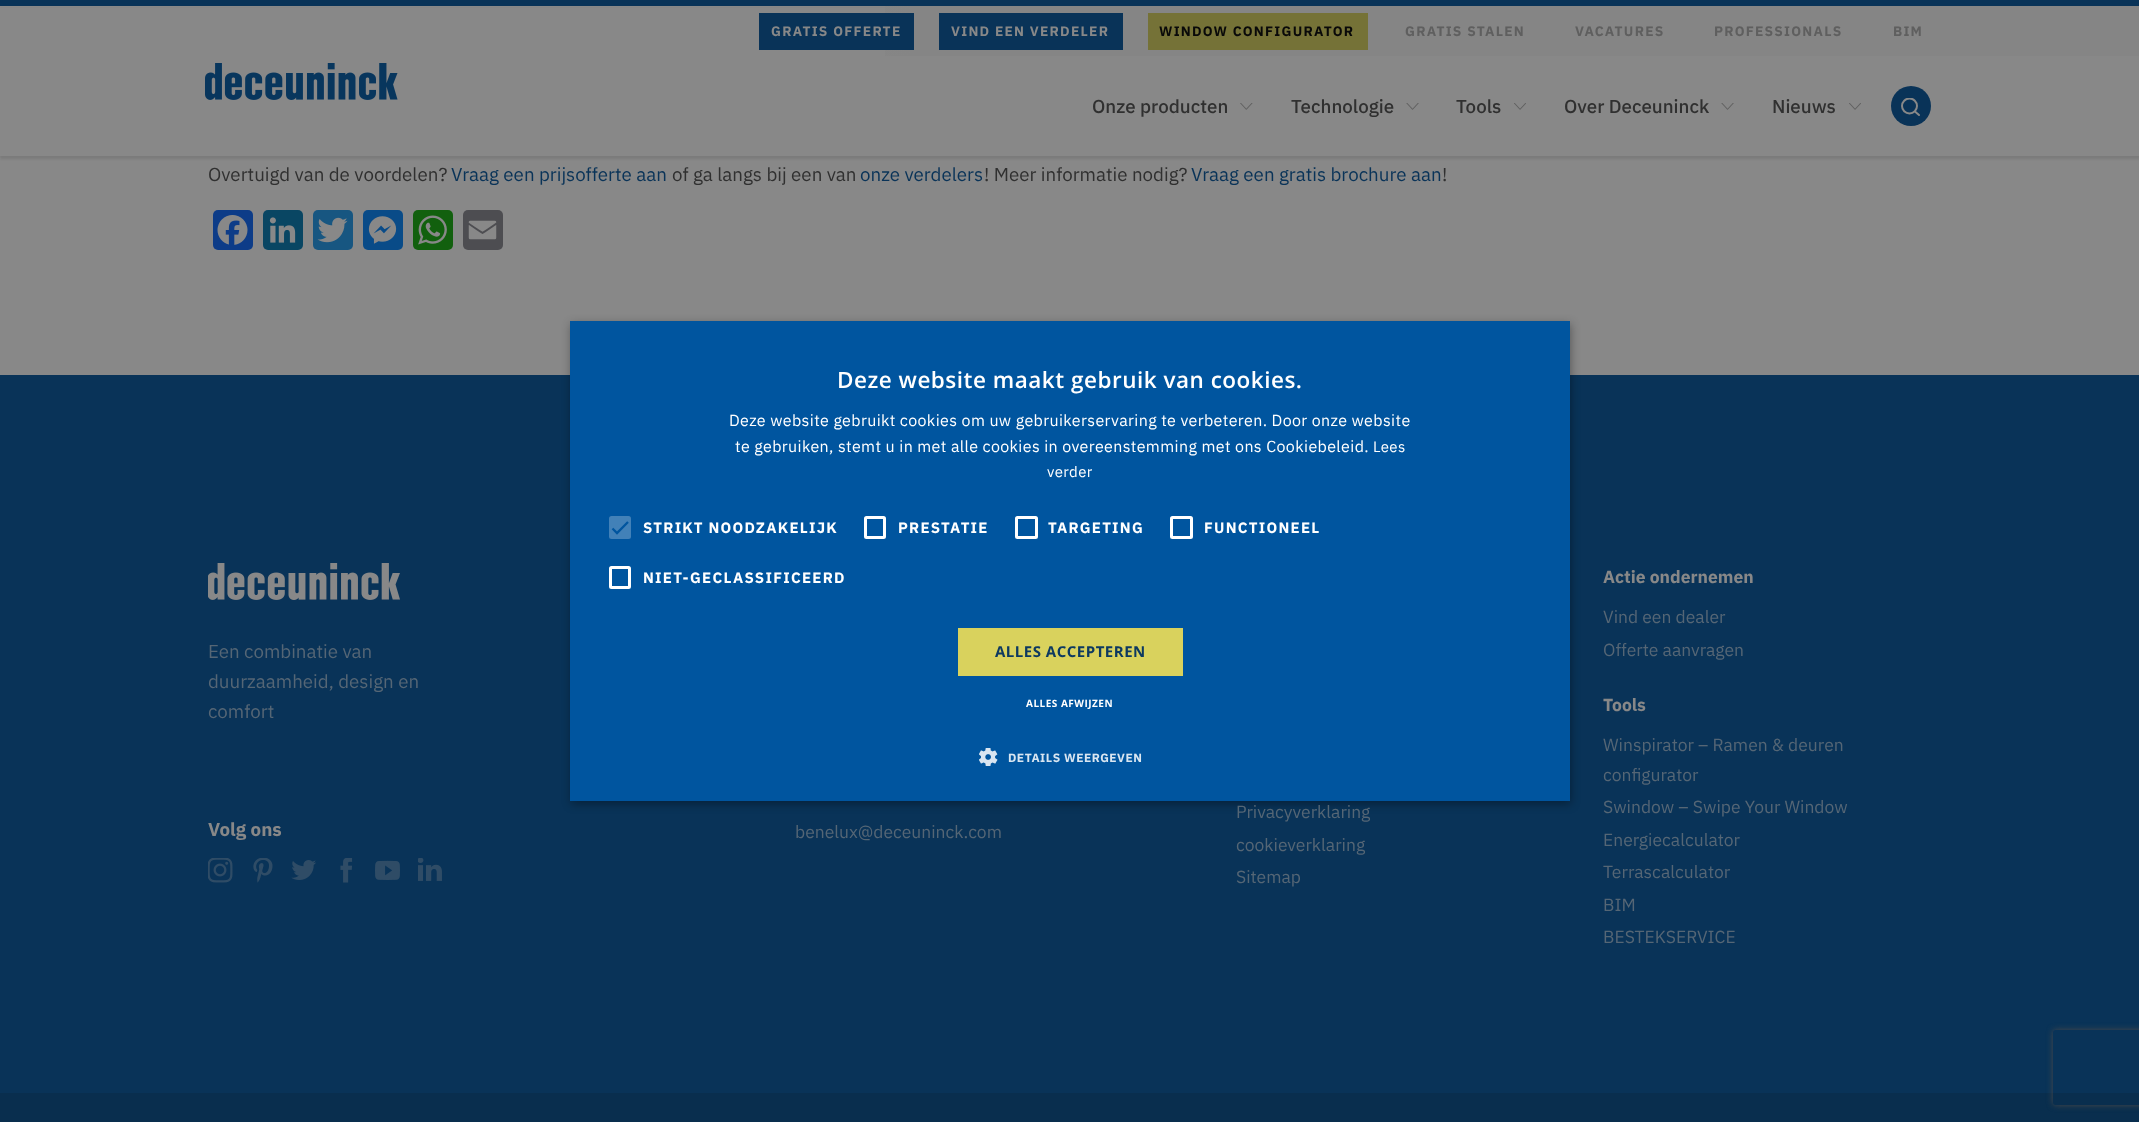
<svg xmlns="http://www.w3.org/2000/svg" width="2139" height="1122">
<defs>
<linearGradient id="g1" gradientUnits="userSpaceOnUse" x1="746" y1="31" x2="1936" y2="31"><stop offset="0" stop-color="#888"/><stop offset="0.14" stop-color="#858585"/><stop offset="1" stop-color="#858585"/></linearGradient>
<clipPath id="clip1"><rect x="1901" y="98" width="19" height="18"/></clipPath>
<clipPath id="clip2"><path d="M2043 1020h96v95h-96zm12.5 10h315c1.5 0 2.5 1 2.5 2.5v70c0 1.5-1 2.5-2.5 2.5h-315c-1.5 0-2.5-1-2.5-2.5v-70c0-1.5 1-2.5 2.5-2.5z" clip-rule="evenodd"/></clipPath>
</defs>
<rect width="100%" height="100%" fill="#888"/>
<rect width="2139" height="6" fill="#093358"/>
<rect y="9" width="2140" height="150" fill="#0909091a" filter="blur(1px)"/>
<rect y="8" width="2139" height="148" fill="#888"/>
<rect x="885" y="6" width="931" height="50" fill="url(#g1)"/>
<rect x="759" y="13" width="155" height="37" fill="#093358"/>
<text x="771" y="36" style="font-family:IBM Plex Sans;font-size:13.75px;font-weight:bold;letter-spacing:1.25px;fill:#888">GRATIS OFFERTE</text>
<rect x="1816" y="6" width="323" height="50" fill="#858585"/>
<rect x="939" y="13" width="184" height="37" fill="#093358"/>
<text x="951" y="36" style="font-family:IBM Plex Sans;font-size:13.75px;font-weight:bold;letter-spacing:1.25px;fill:#888">VIND EEN VERDELER</text>
<rect x="1148" y="13" width="220" height="37" fill="#757237"/>
<text x="1159" y="36" style="font-family:IBM Plex Sans;font-size:13.75px;font-weight:bold;letter-spacing:1.25px;fill:#090909">WINDOW CONFIGURATOR</text>
<text x="1405" y="36" style="font-family:IBM Plex Sans;font-size:13.75px;font-weight:bold;letter-spacing:1.25px;fill:#5f5f5f">GRATIS STALEN</text>
<text x="1575" y="36" style="font-family:IBM Plex Sans;font-size:13.75px;font-weight:bold;letter-spacing:1.25px;fill:#5f5f5f">VACATURES</text>
<text x="1714" y="36" style="font-family:IBM Plex Sans;font-size:13.75px;font-weight:bold;letter-spacing:1.25px;fill:#5f5f5f">PROFESSIONALS</text>
<text x="1893" y="36" style="font-family:IBM Plex Sans;font-size:13.75px;font-weight:bold;letter-spacing:1.25px;fill:#5f5f5f">BIM</text>
<image x="205" y="63" width="193" height="37" href="media/1.png"/>
<text x="1092" y="113" style="font-family:IBM Plex Sans;font-size:18.75px;font-weight:500;fill:#303030">Onze producten</text>
<image x="1240" y="103" width="13" height="7" href="media/2.png"/>
<text x="1291" y="113" style="font-family:IBM Plex Sans;font-size:18.75px;font-weight:500;fill:#303030">Technologie</text>
<image x="1406" y="103" width="13" height="7" href="media/3.png"/>
<text x="1456" y="113" style="font-family:IBM Plex Sans;font-size:18.75px;font-weight:500;fill:#303030">Tools</text>
<image x="1514" y="103" width="12" height="7" href="media/4.png"/>
<text x="1564" y="113" style="font-family:IBM Plex Sans;font-size:18.75px;font-weight:500;fill:#303030">Over Deceuninck</text>
<image x="1721" y="103" width="13" height="7" href="media/3.png"/>
<text x="1772" y="113" style="font-family:IBM Plex Sans;font-size:18.75px;font-weight:500;fill:#303030">Nieuws</text>
<image x="1849" y="103" width="12" height="7" href="media/4.png"/>
<circle cx="1911" cy="106" r="20" fill="#093358"/>
<path d="M1915.5 112l3.5 3" fill="none" stroke="#888" stroke-width="2" stroke-linecap="round"/>
<g clip-path="url(#clip1)">
<circle cx="1909.5" cy="106" r="7.5" fill="none" stroke="#888" stroke-width="2"/>
</g>
<text x="208" y="181" style="font-family:IBM Plex Sans;font-size:18.75px;fill:#303030">Overtuigd van de voordelen?</text>
<text x="451" y="181" style="font-family:IBM Plex Sans;font-size:18.75px;fill:#093358">Vraag een prijsofferte aan</text>
<text x="672" y="181" style="font-family:IBM Plex Sans;font-size:18.75px;fill:#303030">of ga langs bij een van</text>
<text x="860" y="181" style="font-family:IBM Plex Sans;font-size:18.75px;fill:#093358">onze verdelers</text>
<text x="984" y="181" style="font-family:IBM Plex Sans;font-size:18.75px;fill:#303030">! Meer informatie nodig?</text>
<text x="1191" y="181" style="font-family:IBM Plex Sans;font-size:18.75px;fill:#093358">Vraag een gratis brochure aan</text>
<text x="1442" y="181" style="font-family:IBM Plex Sans;font-size:18.75px;fill:#303030">!</text>
<rect x="213" y="210" width="40" height="40" rx="5" fill="#0d3c88"/>
<image x="217" y="215" width="31" height="30" href="media/5.png"/>
<rect x="263" y="210" width="40" height="40" rx="5" fill="#094663"/>
<image x="269" y="217" width="27" height="26" href="media/6.png"/>
<rect x="313" y="210" width="40" height="40" rx="5" fill="#175681"/>
<image x="317" y="217" width="31" height="26" href="media/7.png"/>
<rect x="363" y="210" width="40" height="40" rx="5" fill="#094b88"/>
<image x="368" y="216" width="29" height="28" href="media/8.png"/>
<rect x="413" y="210" width="40" height="40" rx="5" fill="#12600e"/>
<image x="418" y="215" width="29" height="30" href="media/9.png"/>
<rect x="463" y="210" width="40" height="40" rx="5" fill="#4d4d51"/>
<image x="468" y="220" width="29" height="20" href="media/10.png"/>
<rect y="375" width="2139" height="718" fill="#093358"/>
<rect x="571" y="324" width="1000" height="480" fill="#00000059" filter="blur(5px)"/>
<rect x="570" y="321" width="1000" height="480" fill="#00559f"/>
<text x="837" y="388" style="font-family:Open Sans;font-size:22.5px;font-weight:600;letter-spacing:0.5px;fill:#fff">Deze website maakt gebruik van cookies.</text>
<text x="729" y="426" style="font-family:IBM Plex Sans;font-size:16px;letter-spacing:0.38px;fill:#fff">Deze website gebruikt cookies om uw gebruikerservaring te verbeteren. Door onze website</text>
<text x="735" y="452" style="font-family:IBM Plex Sans;font-size:16px;letter-spacing:0.38px;fill:#fff">te gebruiken, stemt u in met alle cookies in overeenstemming met ons Cookiebeleid.</text>
<text x="1373" y="452" style="font-family:IBM Plex Sans;font-size:15px;letter-spacing:0.38px;fill:#fff">Lees</text>
<text x="1047" y="477" style="font-family:IBM Plex Sans;font-size:15px;letter-spacing:0.38px;fill:#fff">verder</text>
<rect x="609" y="516" width="22" height="23" rx="2.5" fill="#4281b8"/>
<path d="M612.5 528.5l4.5 4.5l11-11" fill="none" stroke="#00559f" stroke-width="2.3"/>
<text x="643" y="533" style="font-family:IBM Plex Sans;font-size:15px;font-weight:bold;letter-spacing:1.25px;fill:#fff">STRIKT NOODZAKELIJK</text>
<rect x="865.5" y="517.5" width="19" height="20" rx="1" fill="none" stroke="#fff" stroke-width="3"/>
<text x="898" y="533" style="font-family:IBM Plex Sans;font-size:15px;font-weight:bold;letter-spacing:1.25px;fill:#fff">PRESTATIE</text>
<rect x="1016.5" y="517.5" width="20" height="20" rx="1" fill="none" stroke="#fff" stroke-width="3"/>
<text x="1048" y="533" style="font-family:IBM Plex Sans;font-size:15px;font-weight:bold;letter-spacing:1.25px;fill:#fff">TARGETING</text>
<rect x="1171.5" y="517.5" width="20" height="20" rx="1" fill="none" stroke="#fff" stroke-width="3"/>
<text x="1204" y="533" style="font-family:IBM Plex Sans;font-size:15px;font-weight:bold;letter-spacing:1.25px;fill:#fff">FUNCTIONEEL</text>
<rect x="610.5" y="567.5" width="19" height="20" rx="1" fill="none" stroke="#fff" stroke-width="3"/>
<text x="643" y="583" style="font-family:IBM Plex Sans;font-size:15px;font-weight:bold;letter-spacing:1.25px;fill:#fff">NIET-GECLASSIFICEERD</text>
<rect x="958" y="628" width="225" height="48" fill="#d9d25d"/>
<text x="995" y="657" style="font-family:Open Sans;font-size:15px;font-weight:bold;letter-spacing:0.5px;fill:#0d3960">ALLES ACCEPTEREN</text>
<text x="1026" y="707" style="font-family:Open Sans;font-size:10px;font-weight:bold;letter-spacing:0.5px;fill:#fff">ALLES AFWIJZEN</text>
<image x="979" y="748" width="19" height="18" href="media/11.png"/>
<text x="1008" y="762" style="font-family:IBM Plex Sans;font-size:12px;font-weight:bold;letter-spacing:0.5px;fill:#d9e6f1">DETAILS WEERGEVEN</text>
<image x="208" y="563" width="192" height="37" href="media/12.png"/>
<text x="208" y="658" style="font-family:IBM Plex Sans;font-size:18.75px;fill:#556675">Een combinatie van</text>
<text x="208" y="688" style="font-family:IBM Plex Sans;font-size:18.75px;fill:#556675">duurzaamheid, design en</text>
<text x="208" y="718" style="font-family:IBM Plex Sans;font-size:18.75px;fill:#556675">comfort</text>
<text x="208" y="836" style="font-family:IBM Plex Sans;font-size:18.75px;font-weight:bold;fill:#888">Volg ons</text>
<image x="208" y="858" width="25" height="25" href="media/13.png"/>
<image x="253" y="858" width="20" height="25" href="media/14.png"/>
<image x="291" y="860" width="25" height="20" href="media/15.png"/>
<image x="340" y="858" width="13" height="25" href="media/16.png"/>
<image x="375" y="860" width="25" height="20" href="media/17.png"/>
<image x="418" y="858" width="24" height="23" href="media/18.png"/>
<text x="795" y="838" style="font-family:IBM Plex Sans;font-size:17.5px;fill:#556675">benelux@deceuninck.com</text>
<text x="1236" y="818" style="font-family:IBM Plex Sans;font-size:17.5px;fill:#556675">Privacyverklaring</text>
<text x="1236" y="851" style="font-family:IBM Plex Sans;font-size:17.5px;fill:#556675">cookieverklaring</text>
<text x="1236" y="883" style="font-family:IBM Plex Sans;font-size:17.5px;fill:#556675">Sitemap</text>
<text x="1603" y="583" style="font-family:IBM Plex Sans;font-size:17.5px;font-weight:bold;fill:#888">Actie ondernemen</text>
<text x="1603" y="623" style="font-family:IBM Plex Sans;font-size:17.5px;fill:#556675">Vind een dealer</text>
<text x="1603" y="656" style="font-family:IBM Plex Sans;font-size:17.5px;fill:#556675">Offerte aanvragen</text>
<text x="1603" y="711" style="font-family:IBM Plex Sans;font-size:17.5px;font-weight:bold;fill:#888">Tools</text>
<text x="1603" y="751" style="font-family:IBM Plex Sans;font-size:17.5px;fill:#556675">Winspirator – Ramen &amp; deuren</text>
<text x="1603" y="781" style="font-family:IBM Plex Sans;font-size:17.5px;fill:#556675">configurator</text>
<text x="1603" y="813" style="font-family:IBM Plex Sans;font-size:17.5px;fill:#556675">Swindow – Swipe Your Window</text>
<text x="1603" y="846" style="font-family:IBM Plex Sans;font-size:17.5px;fill:#556675">Energiecalculator</text>
<text x="1603" y="878" style="font-family:IBM Plex Sans;font-size:17.5px;fill:#556675">Terrascalculator</text>
<text x="1603" y="911" style="font-family:IBM Plex Sans;font-size:17.5px;fill:#556675">BIM</text>
<text x="1603" y="943" style="font-family:IBM Plex Sans;font-size:17.5px;fill:#556675">BESTEKSERVICE</text>
<rect y="1093" width="2139" height="29" fill="#092e4e"/>
<g clip-path="url(#clip2)">
<rect x="2053" y="1030" width="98" height="75" rx="2.5" fill="#494949" filter="blur(3px)"/>
</g>
</svg>
